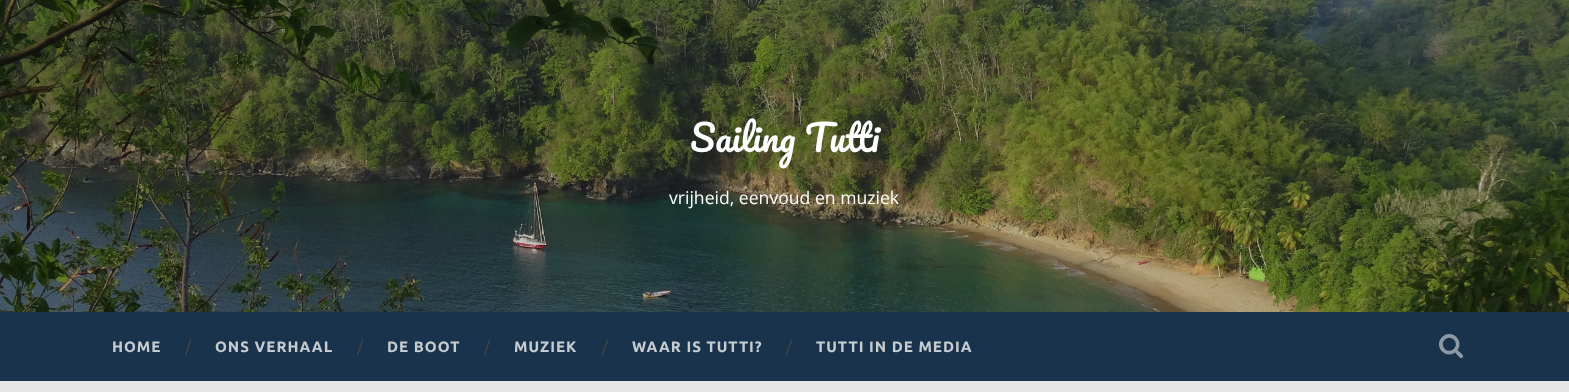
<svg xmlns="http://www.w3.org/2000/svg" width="1569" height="392">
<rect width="100%" height="100%" fill="#e6e6e6"/>
<image x="0" y="0" width="1569" height="312" href="media/1.png"/>
<text x="690" y="152" style="font-family:Pacifico;font-size:36px;fill:#fff">Sailing Tutti</text>
<text x="669" y="204" style="font-family:Open Sans;font-size:17.6px;fill:#fff">vrijheid, eenvoud en muziek</text>
<rect y="312" width="1569" height="69" fill="#19334d"/>
<text x="112" y="352" style="font-family:Ubuntu;font-size:15px;font-weight:bold;letter-spacing:1px;fill:#c7ccd1">HOME</text>
<text x="185" y="352" style="font-family:Ubuntu;font-size:16px;fill:#444">/</text>
<text x="215" y="352" style="font-family:Ubuntu;font-size:15px;font-weight:bold;letter-spacing:1px;fill:#c7ccd1">ONS VERHAAL</text>
<text x="357" y="352" style="font-family:Ubuntu;font-size:16px;fill:#444">/</text>
<text x="387" y="352" style="font-family:Ubuntu;font-size:15px;font-weight:bold;letter-spacing:1px;fill:#c7ccd1">DE BOOT</text>
<text x="484" y="352" style="font-family:Ubuntu;font-size:16px;fill:#444">/</text>
<text x="514" y="352" style="font-family:Ubuntu;font-size:15px;font-weight:bold;letter-spacing:1px;fill:#c7ccd1">MUZIEK</text>
<text x="602" y="352" style="font-family:Ubuntu;font-size:16px;fill:#444">/</text>
<text x="632" y="352" style="font-family:Ubuntu;font-size:15px;font-weight:bold;letter-spacing:1px;fill:#c7ccd1">WAAR IS TUTTI?</text>
<text x="786" y="352" style="font-family:Ubuntu;font-size:16px;fill:#444">/</text>
<text x="816" y="352" style="font-family:Ubuntu;font-size:15px;font-weight:bold;letter-spacing:1px;fill:#c7ccd1">TUTTI IN DE MEDIA</text>
<image x="1439" y="334" width="24" height="24" href="media/2.png"/>
</svg>
